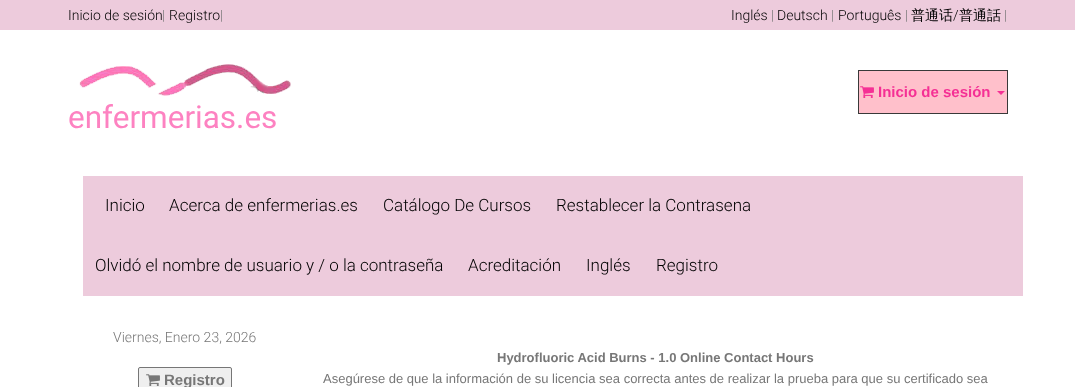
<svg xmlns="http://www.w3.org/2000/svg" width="1075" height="387">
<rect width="100%" height="100%" fill="#fff"/>
<rect width="1075" height="30" fill="#edcbdc"/>
<text x="68" y="20" style="font-family:Roboto;font-size:14px;font-weight:300;fill:#000">Inicio de sesión</text>
<text x="162" y="20" style="font-family:Roboto;font-size:14px;font-weight:300;fill:#777">|</text>
<text x="169" y="20" style="font-family:Roboto;font-size:14px;font-weight:300;fill:#000">Registro</text>
<text x="220" y="20" style="font-family:Roboto;font-size:14px;font-weight:300;fill:#777">|</text>
<text x="731" y="20" style="font-family:Roboto;font-size:14px;font-weight:300;fill:#000">Inglés</text>
<text x="771" y="20" style="font-family:Roboto;font-size:14px;font-weight:300;fill:#777">|</text>
<text x="777" y="20" style="font-family:Roboto;font-size:14px;font-weight:300;fill:#000">Deutsch</text>
<text x="831" y="20" style="font-family:Roboto;font-size:14px;font-weight:300;fill:#777">|</text>
<text x="838" y="20" style="font-family:Roboto;font-size:14px;font-weight:300;fill:#000">Português</text>
<text x="905" y="20" style="font-family:Roboto;font-size:14px;font-weight:300;fill:#777">|</text>
<text x="911" y="20" style="font-family:WenQuanYi Zen Hei;font-size:14px;font-weight:500;fill:#000">普通话</text>
<text x="953" y="20" style="font-family:Roboto;font-size:14px;font-weight:300;fill:#000">/</text>
<text x="959" y="20" style="font-family:WenQuanYi Zen Hei;font-size:14px;font-weight:500;fill:#000">普通話</text>
<text x="1004" y="20" style="font-family:Roboto;font-size:14px;font-weight:300;fill:#777">|</text>
<rect x="858.5" y="70.5" width="149" height="43" fill="#ffc0cb" stroke="#393939"/>
<image x="860" y="86" width="14" height="12" href="media/1.png"/>
<text x="878" y="97" style="font-family:Liberation Sans;font-size:15px;font-weight:bold;fill:#f53095">Inicio de sesión</text>
<path d="M997 91h8l-4 4z" fill="#f53095"/>
<image x="79" y="64" width="212" height="32" href="media/2.png"/>
<text x="68" y="128" style="font-family:Roboto;font-size:31.5px;fill:#fd82c1">enfermerias.es</text>
<rect x="83" y="176" width="940" height="120" fill="#edcbdc"/>
<text x="105" y="211" style="font-family:Roboto;font-size:17px;font-weight:300;fill:#000">Inicio</text>
<text x="169" y="211" style="font-family:Roboto;font-size:17px;font-weight:300;fill:#000">Acerca de enfermerias.es</text>
<text x="383" y="211" style="font-family:Roboto;font-size:17px;font-weight:300;fill:#000">Catálogo De Cursos</text>
<text x="556" y="211" style="font-family:Roboto;font-size:17px;font-weight:300;fill:#000">Restablecer la Contrasena</text>
<text x="95" y="271" style="font-family:Roboto;font-size:17px;font-weight:300;fill:#000">Olvidó el nombre de usuario y / o la contraseña</text>
<text x="468" y="271" style="font-family:Roboto;font-size:17px;font-weight:300;fill:#000">Acreditación</text>
<text x="586" y="271" style="font-family:Roboto;font-size:17px;font-weight:300;fill:#000">Inglés</text>
<text x="656" y="271" style="font-family:Roboto;font-size:17px;font-weight:300;fill:#000">Registro</text>
<text x="113" y="342" style="font-family:Roboto;font-size:14px;font-weight:300;fill:#777">Viernes, Enero 23, 2026</text>
<rect x="138.5" y="367.5" width="93" height="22" rx="1.5" fill="#efefef" stroke="#767676"/>
<image x="146" y="374" width="14" height="12" href="media/3.png"/>
<text x="164" y="385" style="font-family:Liberation Sans;font-size:15px;font-weight:bold;fill:#777">Registro</text>
<text x="497" y="362" style="font-family:Liberation Sans;font-size:13px;font-weight:bold;fill:#777">Hydrofluoric Acid Burns - 1.0 Online Contact Hours</text>
<text x="323" y="383" style="font-family:Liberation Sans;font-size:13px;fill:#777">Asegúrese de que la información de su licencia sea correcta antes de realizar la prueba para que su certificado sea</text>
</svg>
